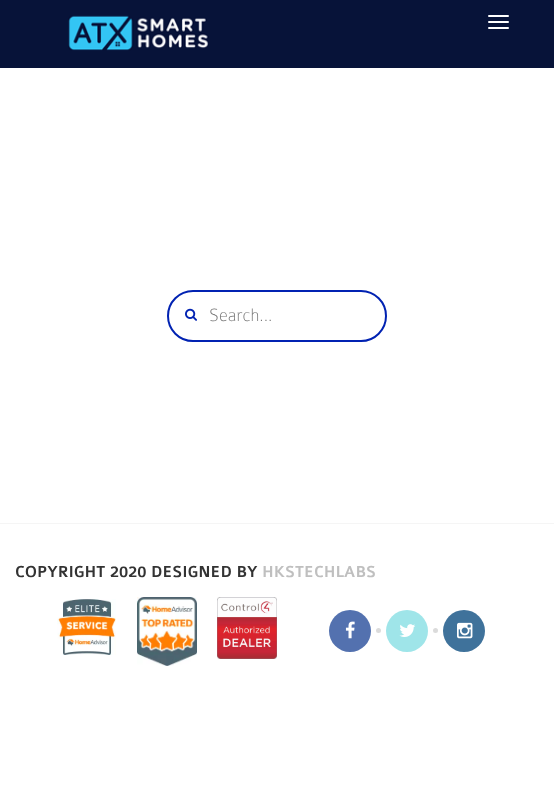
<svg xmlns="http://www.w3.org/2000/svg" width="554" height="793">
<rect width="100%" height="100%" fill="#fff"/>
<rect width="554" height="68" fill="#071339"/>
<image x="68" y="15" width="141" height="36" href="media/1.png"/>
<rect x="488" y="15" width="21" height="2" rx="1" fill="#fff"/>
<rect x="488" y="21" width="21" height="2" rx="1" fill="#fff"/>
<rect x="488" y="27" width="21" height="2" rx="1" fill="#fff"/>
<rect x="168" y="291" width="218" height="50" rx="25" fill="none" stroke="#0122b2" stroke-width="2"/>
<image x="185" y="308" width="12" height="13" href="media/2.png"/>
<text x="209" y="321" style="font-family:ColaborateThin;font-size:19px;font-weight:100;fill:#757575">Search...</text>
<rect y="523" width="554" height="1" fill="#f5f5f5"/>
<text x="15" y="577" style="font-family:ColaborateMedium;font-size:17px;font-weight:500;fill:#333">COPYRIGHT 2020 DESIGNED BY</text>
<text x="262" y="577" style="font-family:ColaborateMedium;font-size:17px;font-weight:500;fill:#bfbfbf">HKSTECHLABS</text>
<image x="57" y="599" width="59" height="56" href="media/3.png"/>
<image x="137" y="597" width="60" height="69" href="media/4.png"/>
<image x="217" y="597" width="60" height="62" href="media/5.png"/>
<circle cx="350" cy="631" r="21" fill="#5371af"/>
<image x="345" y="621" width="10" height="18" href="media/6.png"/>
<circle cx="378.5" cy="630.5" r="2.5" fill="#dbdbdb"/>
<circle cx="407" cy="631" r="21" fill="#9fe5e9"/>
<image x="399" y="624" width="16" height="13" href="media/7.png"/>
<circle cx="435.5" cy="630.5" r="2.5" fill="#dbdbdb"/>
<circle cx="464" cy="631" r="21" fill="#3f729b"/>
<image x="457" y="622" width="16" height="17" href="media/8.png"/>
</svg>
